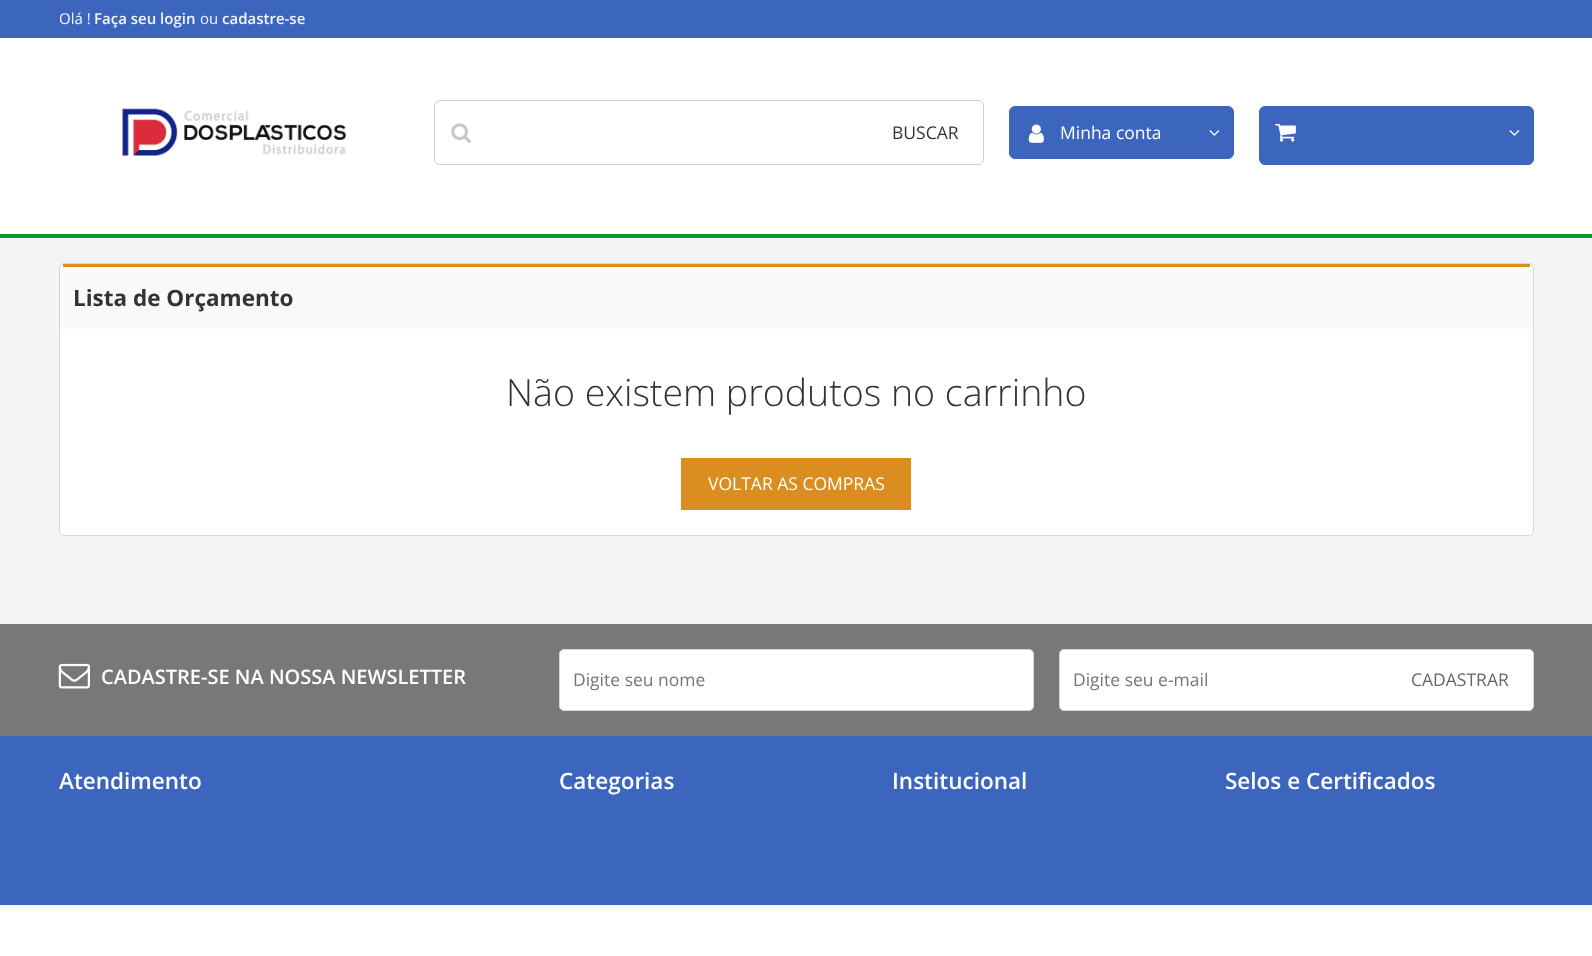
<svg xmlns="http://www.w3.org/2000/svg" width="1592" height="956">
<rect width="100%" height="100%" fill="#fff"/>
<rect y="238" width="1592" height="386" fill="#f3f4f5"/>
<rect width="1592" height="38" fill="#3c66be"/>
<text x="59" y="24" style="font-family:Open Sans;font-size:15px;fill:#f3f4f5">Olá !</text>
<text x="94" y="24" style="font-family:Open Sans;font-size:15px;font-weight:600;fill:#f3f4f5">Faça seu login</text>
<text x="200" y="24" style="font-family:Open Sans;font-size:15px;fill:#f3f4f5">ou</text>
<text x="222" y="24" style="font-family:Open Sans;font-size:15px;font-weight:600;fill:#f3f4f5">cadastre-se</text>
<image x="122" y="108" width="225" height="49" href="media/1.png"/>
<rect x="434.5" y="100.5" width="549" height="64" rx="5.5" fill="none" stroke="#cfcfcf"/>
<image x="451" y="123" width="20" height="20" href="media/2.png"/>
<text x="892" y="139" style="font-family:Open Sans;font-size:17.5px;fill:#333">BUSCAR</text>
<rect x="1009.5" y="106.5" width="224" height="52" rx="5.5" fill="#3c66be" stroke="#3c66be"/>
<image x="1028" y="124" width="16" height="19" href="media/3.png"/>
<text x="1060" y="139" style="font-family:Open Sans;font-size:17.5px;fill:#fff">Minha conta</text>
<image x="1209" y="130" width="11" height="6" href="media/4.png"/>
<rect x="1259.5" y="106.5" width="274" height="58" rx="5.5" fill="#3c66be" stroke="#3c66be"/>
<image x="1275" y="123" width="21" height="19" href="media/5.png"/>
<image x="1509" y="130" width="11" height="6" href="media/4.png"/>
<rect y="237" width="1592" height="1" fill="#3c66be"/>
<rect y="234" width="1592" height="3" fill="#09952d"/>
<rect x="59.5" y="263.5" width="1474" height="272" rx="4.5" fill="#fff" stroke="#d7d7d7"/>
<path d="M65 264h1463c3 0 5 2 5 5v60h-1473v-60c0-3 2-5 5-5z" fill="#f9f9f9"/>
<rect x="63" y="264" width="1467" height="3" fill="#db8d1f"/>
<text x="73" y="306" style="font-family:Open Sans;font-size:22.5px;font-weight:bold;fill:#333">Lista de Orçamento</text>
<text x="506" y="406" style="font-family:Open Sans;font-size:37.5px;font-weight:300;fill:#333">Não existem produtos no carrinho</text>
<rect x="681" y="458" width="230" height="52" fill="#db8d1f"/>
<text x="708" y="490" style="font-family:Open Sans;font-size:17.5px;fill:#fff">VOLTAR AS COMPRAS</text>
<rect y="736" width="1592" height="169" fill="#3c66be"/>
<rect y="624" width="1592" height="112" fill="#787878"/>
<image x="58" y="663" width="32" height="26" href="media/6.png"/>
<text x="101" y="684" style="font-family:Open Sans;font-size:20px;font-weight:600;fill:#fff">CADASTRE-SE NA NOSSA NEWSLETTER</text>
<rect x="559.5" y="649.5" width="474" height="61" rx="4.5" fill="#fff" stroke="#d7d7d7"/>
<text x="573" y="686" style="font-family:Open Sans;font-size:17.5px;fill:#757575">Digite seu nome</text>
<rect x="1059.5" y="649.5" width="474" height="61" rx="4.5" fill="#fff" stroke="#d7d7d7"/>
<text x="1073" y="686" style="font-family:Open Sans;font-size:17.5px;fill:#757575">Digite seu e-mail</text>
<text x="1411" y="686" style="font-family:Open Sans;font-size:17.5px;fill:#666">CADASTRAR</text>
<text x="59" y="789" style="font-family:Open Sans;font-size:22.5px;font-weight:600;fill:#fff">Atendimento</text>
<text x="559" y="789" style="font-family:Open Sans;font-size:22.5px;font-weight:600;fill:#fff">Categorias</text>
<text x="892" y="789" style="font-family:Open Sans;font-size:22.5px;font-weight:600;fill:#fff">Institucional</text>
<text x="1225" y="789" style="font-family:Open Sans;font-size:22.5px;font-weight:600;fill:#fff">Selos e Certificados</text>
</svg>
